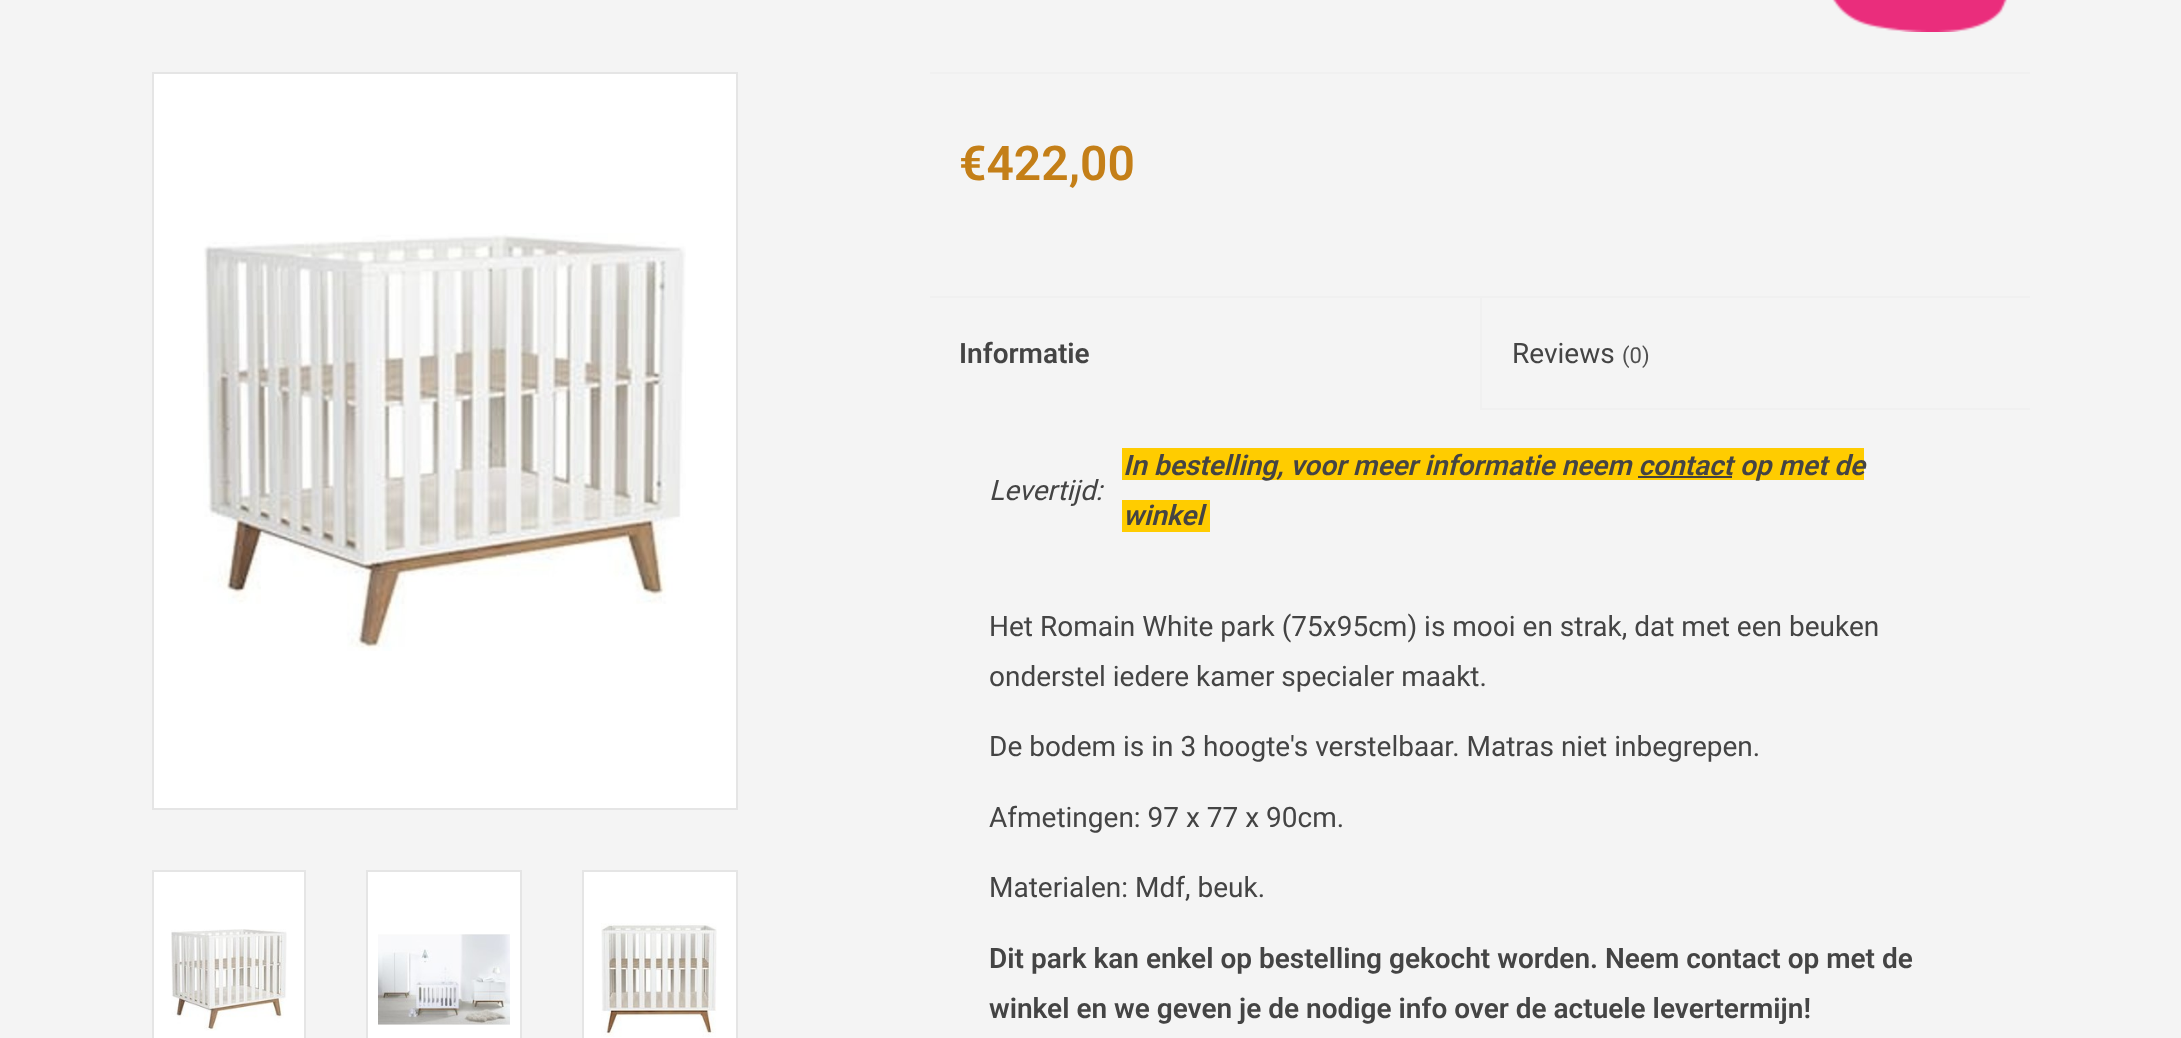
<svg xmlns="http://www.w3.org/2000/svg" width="2181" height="1038">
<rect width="100%" height="100%" fill="#f4f4f4"/>
<image x="1832" y="0" width="175" height="32" href="media/1.png"/>
<rect x="153" y="73" width="584" height="736" fill="none" stroke="#e5e5e5" stroke-width="2"/>
<rect x="154" y="74" width="582" height="734" fill="#fff"/>
<image x="203" y="233" width="483" height="418" href="media/2.png"/>
<rect x="153" y="871" width="152" height="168" fill="none" stroke="#e5e5e5" stroke-width="2"/>
<rect x="154" y="872" width="150" height="166" fill="#fff"/>
<image x="171" y="929" width="116" height="102" href="media/3.png"/>
<rect x="367" y="871" width="154" height="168" fill="none" stroke="#e5e5e5" stroke-width="2"/>
<rect x="368" y="872" width="152" height="166" fill="#fff"/>
<image x="378" y="934" width="132" height="91" href="media/4.png"/>
<rect x="583" y="871" width="154" height="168" fill="none" stroke="#e5e5e5" stroke-width="2"/>
<rect x="584" y="872" width="152" height="166" fill="#fff"/>
<image x="601" y="923" width="116" height="114" href="media/5.png"/>
<rect x="930" y="72" width="1100" height="2" fill="#f0f0f0"/>
<text x="959" y="180" style="font-family:Roboto;font-size:48px;font-weight:600;fill:#c47f18">€422,00</text>
<rect x="930" y="296" width="1100" height="2" fill="#f0f0f0"/>
<text x="959" y="363" style="font-family:Roboto;font-size:28px;font-weight:600;fill:#444">Informatie</text>
<rect x="1480" y="408" width="550" height="2" fill="#f0f0f0"/>
<rect x="1480" y="298" width="2" height="112" fill="#f0f0f0"/>
<text x="1512" y="363" style="font-family:Roboto;font-size:28px;fill:#444">Reviews</text>
<text x="1622" y="363" style="font-family:Roboto;font-size:22px;fill:#505050">(0)</text>
<text x="989" y="500" style="font-family:Roboto;font-size:28px;font-style:italic;fill:#444">Levertijd:</text>
<rect x="1122" y="448" width="742" height="32" fill="#fc0"/>
<text x="1123" y="475" style="font-family:Roboto;font-size:28px;font-weight:600;font-style:italic;fill:#444">In bestelling, voor meer informatie neem contact op met de</text>
<rect x="1638" y="476" width="94" height="2" fill="#414141"/>
<rect x="1122" y="500" width="88" height="32" fill="#fc0"/>
<text x="1123" y="525" style="font-family:Roboto;font-size:28px;font-weight:600;font-style:italic;fill:#444">winkel</text>
<text x="989" y="636" style="font-family:Roboto;font-size:28px;fill:#444">Het Romain White park (75x95cm) is mooi en strak, dat met een beuken</text>
<text x="989" y="686" style="font-family:Roboto;font-size:28px;fill:#444">onderstel iedere kamer specialer maakt.</text>
<text x="989" y="756" style="font-family:Roboto;font-size:28px;fill:#444">De bodem is in 3 hoogte's verstelbaar. Matras niet inbegrepen.</text>
<text x="989" y="827" style="font-family:Roboto;font-size:28px;fill:#444">Afmetingen: 97 x 77 x 90cm.</text>
<text x="989" y="897" style="font-family:Roboto;font-size:28px;fill:#444">Materialen: Mdf, beuk.</text>
<text x="989" y="968" style="font-family:Roboto;font-size:28px;font-weight:600;fill:#444">Dit park kan enkel op bestelling gekocht worden. Neem contact op met de</text>
<text x="989" y="1018" style="font-family:Roboto;font-size:28px;font-weight:600;fill:#444">winkel en we geven je de nodige info over de actuele levertermijn!</text>
</svg>
